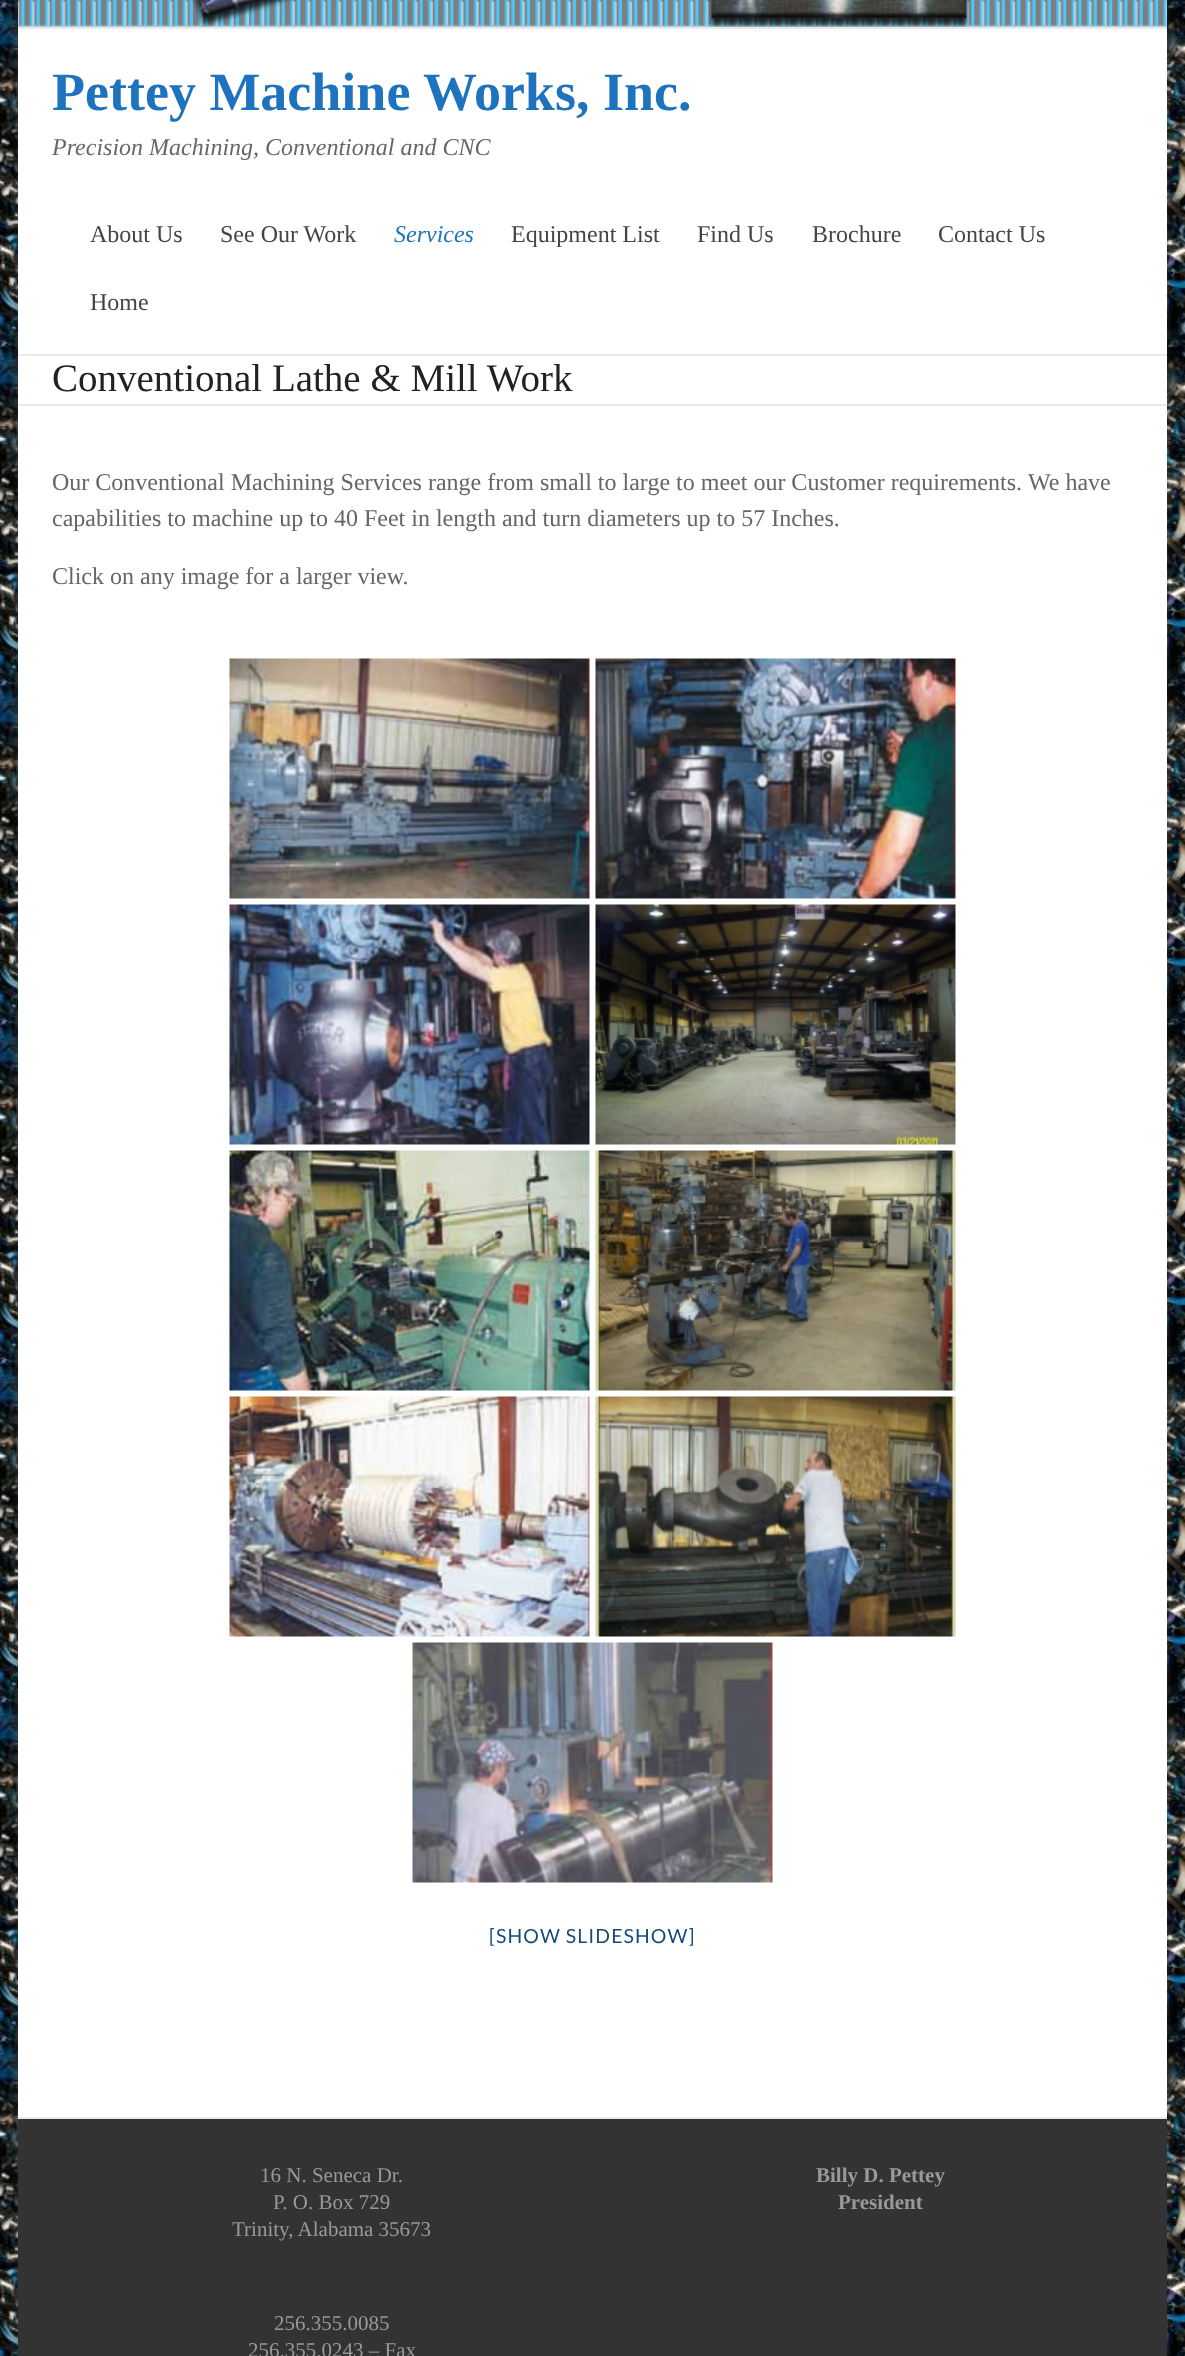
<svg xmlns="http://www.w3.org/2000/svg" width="1185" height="2356">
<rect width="100%" height="100%" fill="#fff"/>
<image x="0" y="0" width="1185" height="2356" href="media/1.png"/>
<rect x="18" y="-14" width="1149" height="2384" fill="#6464644d" filter="blur(4.5px)"/>
<rect x="18" y="29" width="1149" height="2088" fill="#fff"/>
<image x="18" y="0" width="1149" height="27" href="media/2.png"/>
<rect x="18" y="27" width="1149" height="2" fill="#eaeaea"/>
<rect x="18" y="354" width="1149" height="2" fill="#eaeaea"/>
<text x="52" y="110" style="font-family:Liberation Serif;font-size:54px;font-weight:bold;fill:#1e73be">Pettey Machine Works, Inc.</text>
<text x="52" y="155" style="font-family:Liberation Serif;font-size:24px;font-style:italic;fill:#666">Precision Machining, Conventional and CNC</text>
<text x="90" y="242" style="font-family:Liberation Serif;font-size:24px;fill:#444">About Us</text>
<text x="220" y="242" style="font-family:Liberation Serif;font-size:24px;fill:#444">See Our Work</text>
<text x="394" y="242" style="font-family:Liberation Serif;font-size:24px;font-style:italic;fill:#1e73be">Services</text>
<text x="511" y="242" style="font-family:Liberation Serif;font-size:24px;fill:#444">Equipment List</text>
<text x="697" y="242" style="font-family:Liberation Serif;font-size:24px;fill:#444">Find Us</text>
<text x="812" y="242" style="font-family:Liberation Serif;font-size:24px;fill:#444">Brochure</text>
<text x="938" y="242" style="font-family:Liberation Serif;font-size:24px;fill:#444">Contact Us</text>
<text x="90" y="310" style="font-family:Liberation Serif;font-size:24px;fill:#444">Home</text>
<rect x="18" y="404" width="1149" height="2" fill="#eaeaea"/>
<text x="52" y="391" style="font-family:Liberation Serif;font-size:39px;fill:#222">Conventional Lathe &amp; Mill Work</text>
<text x="52" y="490" style="font-family:Liberation Serif;font-size:24px;fill:#666">Our Conventional Machining Services range from small to large to meet our Customer requirements.</text>
<text x="1028" y="490" style="font-family:Liberation Serif;font-size:24px;fill:#666">We have</text>
<text x="52" y="526" style="font-family:Liberation Serif;font-size:24px;fill:#666">capabilities to machine up to 40 Feet in length and turn diameters up to 57 Inches.</text>
<text x="52" y="584" style="font-family:Liberation Serif;font-size:24px;fill:#666">Click on any image for a larger view.</text>
<image x="229" y="658" width="361" height="241" href="media/3.png"/>
<image x="595" y="658" width="361" height="241" href="media/4.png"/>
<image x="229" y="904" width="361" height="241" href="media/5.png"/>
<image x="595" y="904" width="361" height="241" href="media/6.png"/>
<image x="229" y="1150" width="361" height="241" href="media/7.png"/>
<image x="595" y="1150" width="361" height="241" href="media/8.png"/>
<image x="229" y="1396" width="361" height="241" href="media/9.png"/>
<image x="595" y="1396" width="361" height="241" href="media/10.png"/>
<image x="412" y="1642" width="361" height="241" href="media/11.png"/>
<text x="489" y="1943" style="font-family:Lato;font-size:19.5px;letter-spacing:1.1px;fill:#164b77">[SHOW SLIDESHOW]</text>
<rect x="18" y="2119" width="1149" height="237" fill="#333"/>
<rect x="18" y="2117" width="1149" height="2" fill="#eaeaea"/>
<text x="260" y="2182" style="font-family:Liberation Serif;font-size:21px;fill:#999">16 N. Seneca Dr.</text>
<text x="273" y="2209" style="font-family:Liberation Serif;font-size:21px;fill:#999">P. O. Box 729</text>
<text x="232" y="2236" style="font-family:Liberation Serif;font-size:21px;fill:#999">Trinity, Alabama 35673</text>
<text x="816" y="2182" style="font-family:Liberation Serif;font-size:21px;font-weight:bold;fill:#999">Billy D. Pettey</text>
<text x="838" y="2209" style="font-family:Liberation Serif;font-size:21px;font-weight:bold;fill:#999">President</text>
<text x="274" y="2330" style="font-family:Liberation Serif;font-size:21px;fill:#999">256.355.0085</text>
<text x="248" y="2357" style="font-family:Liberation Serif;font-size:21px;fill:#999">256.355.0243 – Fax</text>
</svg>
